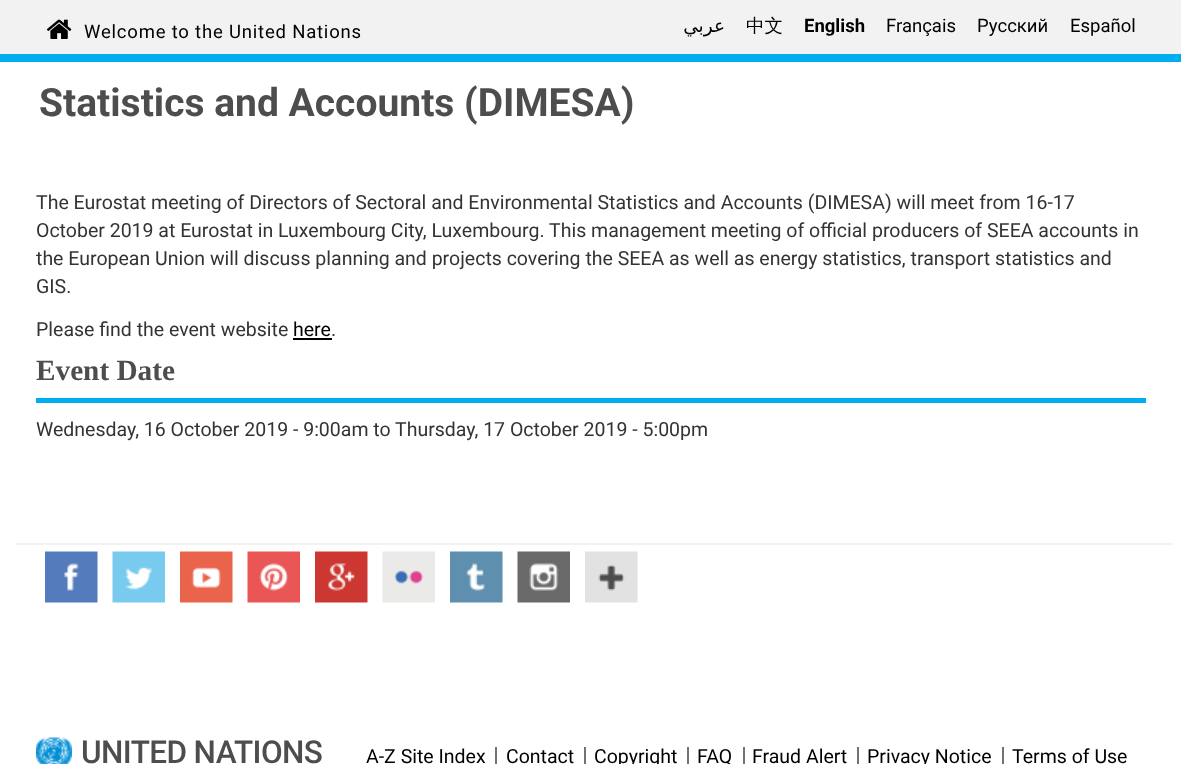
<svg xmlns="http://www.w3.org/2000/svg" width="1181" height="764">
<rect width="100%" height="100%" fill="#fff"/>
<rect width="1181" height="54" fill="#f2f2f2"/>
<rect y="54" width="1181" height="8" fill="#00adef"/>
<image x="46" y="19" width="26" height="20" href="media/1.png"/>
<text x="84" y="38" style="font-family:Roboto;font-size:18.5px;letter-spacing:0.8px;fill:#000">Welcome to the United Nations</text>
<text x="725" y="32" style="font-family:DejaVu Sans;font-size:18.5px;direction:rtl;fill:#000">عربي</text>
<text x="746" y="32" style="font-family:WenQuanYi Zen Hei;font-size:18.5px;font-weight:500;fill:#000">中文</text>
<text x="804" y="32" style="font-family:Roboto;font-size:18.5px;font-weight:bold;fill:#000">English</text>
<text x="886" y="32" style="font-family:Roboto;font-size:18.5px;fill:#000">Français</text>
<text x="977" y="32" style="font-family:Roboto;font-size:18.5px;fill:#000">Русский</text>
<text x="1070" y="32" style="font-family:Roboto;font-size:18.5px;fill:#000">Español</text>
<text x="39" y="116" style="font-family:Roboto;font-size:39px;font-weight:bold;fill:#4d4d4d">Statistics and Accounts (DIMESA)</text>
<text x="36" y="209" style="font-family:Roboto;font-size:19.5px;fill:#333">The Eurostat meeting of Directors of Sectoral and Environmental Statistics and Accounts (DIMESA) will meet from 16-17</text>
<text x="36" y="237" style="font-family:Roboto;font-size:19.5px;fill:#333">October 2019 at Eurostat in Luxembourg City, Luxembourg. This management meeting of official producers of SEEA accounts in</text>
<text x="36" y="265" style="font-family:Roboto;font-size:19.5px;fill:#333">the European Union will discuss planning and projects covering the SEEA as well as energy statistics, transport statistics and</text>
<text x="36" y="293" style="font-family:Roboto;font-size:19.5px;fill:#333">GIS.</text>
<text x="36" y="336" style="font-family:Roboto;font-size:19.5px;fill:#333">Please find the event website</text>
<text x="293" y="336" style="font-family:Roboto;font-size:19.5px;fill:#000">here</text>
<rect x="293" y="338" width="39" height="2" fill="#000"/>
<text x="331" y="336" style="font-family:Roboto;font-size:19.5px;fill:#333">.</text>
<rect x="36" y="398" width="1110" height="5" fill="#00adef"/>
<text x="36" y="380" style="font-family:Liberation Serif;font-size:29.25px;font-weight:bold;fill:#4d4d4d">Event Date</text>
<text x="36" y="436" style="font-family:Roboto;font-size:19.5px;fill:#333">Wednesday, 16 October 2019 - 9:00am to</text>
<text x="395" y="436" style="font-family:Roboto;font-size:19.5px;fill:#333">Thursday, 17 October 2019 - 5:00pm</text>
<rect x="15" y="543" width="1158" height="2" fill="#f2f2f2"/>
<image x="45" y="551" width="53" height="52" href="media/2.png"/>
<image x="112" y="551" width="53" height="52" href="media/3.png"/>
<image x="180" y="551" width="53" height="52" href="media/4.png"/>
<image x="247" y="551" width="53" height="52" href="media/5.png"/>
<image x="315" y="551" width="53" height="52" href="media/6.png"/>
<image x="382" y="551" width="53" height="52" href="media/7.png"/>
<image x="450" y="551" width="53" height="52" href="media/8.png"/>
<image x="517" y="551" width="53" height="52" href="media/9.png"/>
<image x="585" y="551" width="53" height="52" href="media/10.png"/>
<image x="36" y="737" width="36" height="27" href="media/11.png"/>
<text x="81" y="763" style="font-family:Roboto;font-size:31.5px;font-weight:500;letter-spacing:-0.6px;fill:#4d4d4d">UNITED NATIONS</text>
<rect x="495" y="747" width="2" height="17" fill="#737373"/>
<text x="366" y="763" style="font-family:Roboto;font-size:19.5px;fill:#000">A-Z Site Index</text>
<rect x="584" y="747" width="2" height="17" fill="#737373"/>
<text x="506" y="763" style="font-family:Roboto;font-size:19.5px;fill:#000">Contact</text>
<rect x="687" y="747" width="2" height="17" fill="#737373"/>
<text x="594" y="763" style="font-family:Roboto;font-size:19.5px;fill:#000">Copyright</text>
<rect x="743" y="747" width="2" height="17" fill="#737373"/>
<text x="697" y="763" style="font-family:Roboto;font-size:19.5px;fill:#000">FAQ</text>
<rect x="857" y="747" width="2" height="17" fill="#737373"/>
<text x="752" y="763" style="font-family:Roboto;font-size:19.5px;fill:#000">Fraud Alert</text>
<rect x="1002" y="747" width="2" height="17" fill="#737373"/>
<text x="867" y="763" style="font-family:Roboto;font-size:19.5px;fill:#000">Privacy Notice</text>
<text x="1012" y="763" style="font-family:Roboto;font-size:19.5px;fill:#000">Terms of Use</text>
</svg>
